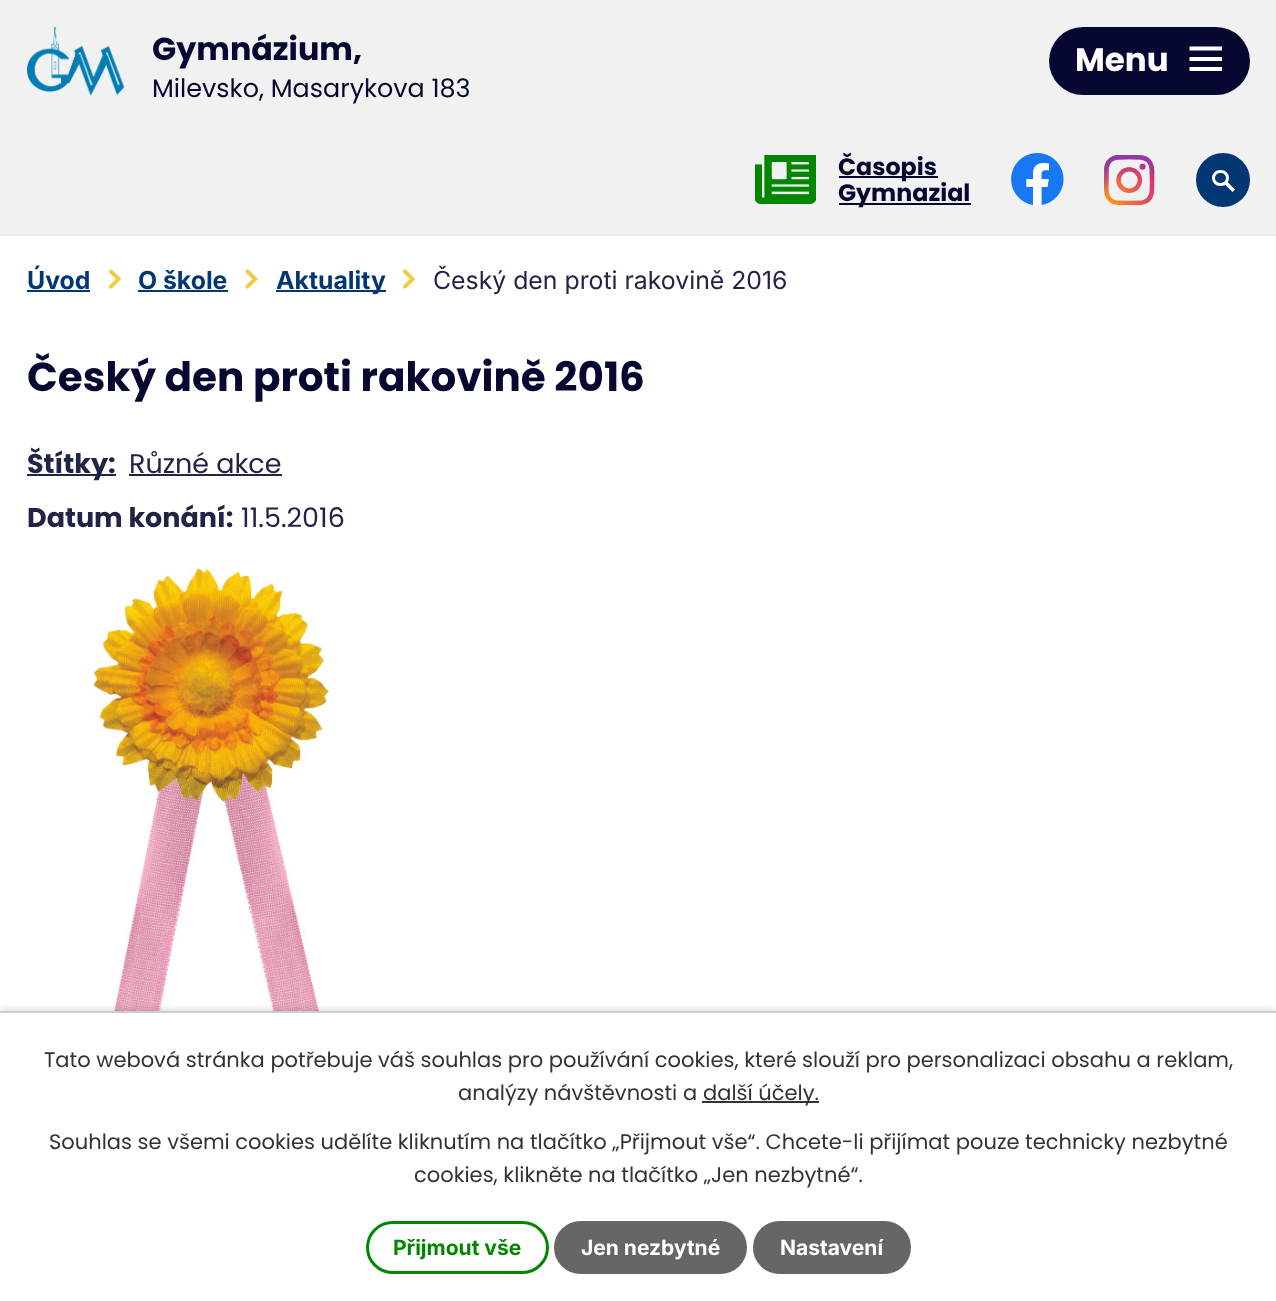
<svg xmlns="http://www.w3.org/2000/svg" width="1276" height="1301">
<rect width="100%" height="100%" fill="#fff"/>
<rect width="1276" height="234" fill="#f1f1f1"/>
<rect y="234" width="1276" height="2" fill="#eee"/>
<image x="27" y="27" width="98" height="69" href="media/1.png"/>
<text x="152" y="60" style="font-family:Poppins;font-size:31.75px;font-weight:bold;fill:#060831">Gymnázium,</text>
<text x="152" y="97" style="font-family:Poppins;font-size:25.4px;fill:#060831">Milevsko, Masarykova 183</text>
<image x="755" y="155" width="61" height="49" href="media/2.png"/>
<rect x="839" y="176" width="99" height="2" fill="#060831"/>
<text x="838" y="175" style="font-family:Poppins;font-size:23.75px;font-weight:bold;fill:#060831">Časopis</text>
<rect x="839" y="203" width="132" height="2" fill="#060831"/>
<text x="838" y="201" style="font-family:Poppins;font-size:23.75px;font-weight:bold;fill:#060831">Gymnazial</text>
<image x="1011" y="153" width="53" height="53" href="media/3.png"/>
<image x="1104" y="155" width="51" height="51" href="media/4.png"/>
<circle cx="1223" cy="180" r="26" fill="#033773" stroke="#033773" stroke-width="2"/>
<rect x="1213.5" y="171.5" width="14" height="13" rx="6.5" fill="none" stroke="#fff" stroke-width="3"/>
<path d="M1226.5 181l8.5 8.5l-2.5 2.5l-8.5-8.5z" fill="#fff"/>
<rect x="1049" y="27" width="201" height="68" rx="34" fill="#060831"/>
<text x="1075" y="71" style="font-family:Poppins;font-size:32.5px;font-weight:bold;fill:#fff">Menu</text>
<path d="M1189.5 71v-4h32.5v4zm0-24.5h32.5v4h-32.5zm0 14.5v-4h32.5v4z" fill="#fff"/>
<text x="27" y="289" style="font-family:Inter;font-size:24.8px;font-weight:bold;fill:#023774">Úvod</text>
<rect x="27" y="290" width="63" height="2" fill="#023774"/>
<image x="108" y="269" width="14" height="20" href="media/5.png"/>
<text x="138" y="289" style="font-family:Inter;font-size:24.8px;font-weight:bold;fill:#023774">O škole</text>
<rect x="138" y="290" width="90" height="2" fill="#023774"/>
<image x="245" y="269" width="13" height="20" href="media/6.png"/>
<rect x="276" y="290" width="110" height="2" fill="#023774"/>
<text x="276" y="289" style="font-family:Inter;font-size:24.8px;font-weight:bold;fill:#023774">Aktuality</text>
<image x="402" y="269" width="14" height="20" href="media/5.png"/>
<text x="433" y="289" style="font-family:Inter;font-size:24.8px;fill:#212347">Český den proti rakovině 2016</text>
<text x="27" y="391" style="font-family:Poppins;font-size:40.5px;font-weight:bold;fill:#060831">Český den proti rakovině 2016</text>
<rect x="27" y="474" width="89" height="2" fill="#212347"/>
<text x="27" y="473" style="font-family:Poppins;font-size:27px;font-weight:bold;fill:#212347">Štítky:</text>
<text x="129" y="473" style="font-family:Poppins;font-size:27px;fill:#212347">Různé akce</text>
<rect x="129" y="474" width="153" height="2" fill="#212347"/>
<text x="27" y="527" style="font-family:Poppins;font-size:27px;font-weight:bold;fill:#212347">Datum konání:</text>
<text x="241" y="527" style="font-family:Poppins;font-size:27px;fill:#212347">11.5.2016</text>
<image x="92" y="567" width="239" height="444" href="media/7.png"/>
<rect y="1011" width="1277" height="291" fill="#00000033" filter="blur(4px)"/>
<rect y="1013" width="1276" height="288" fill="#fff"/>
<rect y="1011" width="1276" height="2" fill="#ccc"/>
<text x="44" y="1067" style="font-family:Poppins;font-size:21px;fill:#333">Tato webová stránka potřebuje váš souhlas pro používání cookies, které slouží pro personalizaci obsahu a reklam,</text>
<text x="458" y="1100" style="font-family:Poppins;font-size:21px;fill:#333">analýzy návštěvnosti a</text>
<rect x="702" y="1101" width="117" height="2" fill="#333"/>
<text x="703" y="1100" style="font-family:Poppins;font-size:21px;fill:#333">další účely.</text>
<text x="49" y="1149" style="font-family:Poppins;font-size:21px;fill:#333">Souhlas se všemi cookies udělíte kliknutím na tlačítko „Přijmout vše“. Chcete-li přijímat pouze technicky nezbytné</text>
<text x="414" y="1182" style="font-family:Poppins;font-size:21px;fill:#333">cookies, klikněte na tlačítko „Jen nezbytné“.</text>
<rect x="367.5" y="1222.5" width="180" height="50" rx="25" fill="none" stroke="#008700" stroke-width="3"/>
<text x="393" y="1255" style="font-family:Inter;font-size:21px;font-weight:bold;fill:#008700">Přijmout vše</text>
<rect x="554" y="1221" width="193" height="53" rx="26.5" fill="#666"/>
<text x="581" y="1255" style="font-family:Inter;font-size:21px;font-weight:bold;fill:#fff">Jen nezbytné</text>
<rect x="753" y="1221" width="158" height="53" rx="26.5" fill="#666"/>
<text x="780" y="1255" style="font-family:Inter;font-size:21px;font-weight:bold;fill:#fff">Nastavení</text>
</svg>
